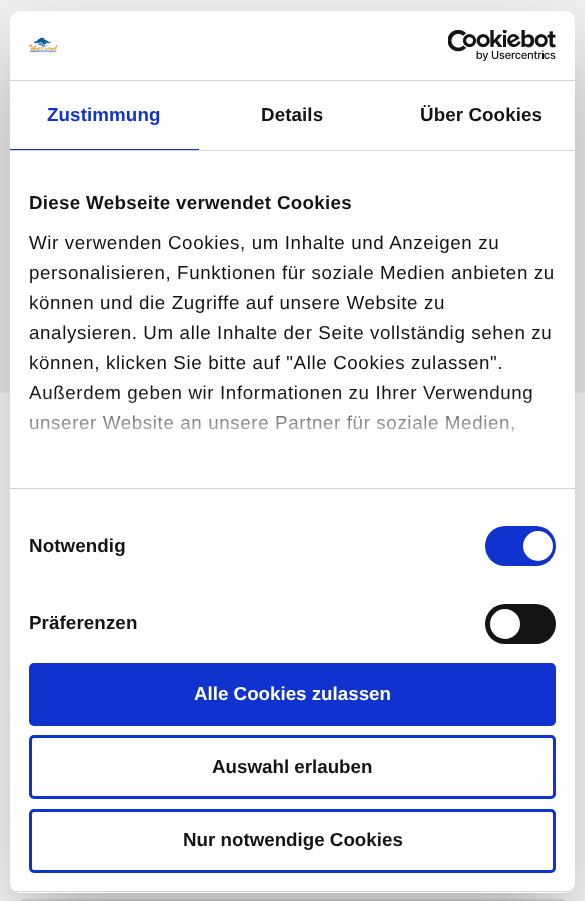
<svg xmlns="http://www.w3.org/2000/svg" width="585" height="901">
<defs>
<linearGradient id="g1" gradientUnits="userSpaceOnUse" x1="284" y1="487" x2="284" y2="393"><stop offset="0" stop-color="#fff"/><stop offset="0.5" stop-color="#fff" stop-opacity="0.8"/><stop offset="1" stop-color="#fff" stop-opacity="0"/></linearGradient>
<clipPath id="clip1"><rect x="10" y="11" width="565" height="882" rx="10"/></clipPath>
</defs>
<rect width="100%" height="100%" fill="#fff"/>
<rect width="585" height="393" fill="#f2f2f2"/>
<rect x="21" y="900" width="543" height="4" fill="#00000033" filter="blur(1px)"/>
<rect x="10" y="51" width="565" height="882" rx="10" fill="#0000004d" filter="blur(42.5px)"/>
<rect x="10" y="11" width="565" height="882" rx="10" fill="#fff"/>
<rect x="10" y="80" width="565" height="1" fill="#d6d6d6"/>
<image x="28" y="37" width="30" height="16" href="media/1.png"/>
<image x="448" y="30" width="108" height="31" href="media/2.png"/>
<rect x="10" y="150" width="565" height="1" fill="#d6d6d6"/>
<rect x="10" y="149" width="189" height="1" fill="#1032cf"/>
<text x="47" y="121" style="font-family:Liberation Sans;font-size:18.75px;font-weight:bold;letter-spacing:0.1px;fill:#1032cf">Zustimmung</text>
<text x="261" y="121" style="font-family:Liberation Sans;font-size:18.75px;font-weight:bold;letter-spacing:0.1px;fill:#141414">Details</text>
<text x="420" y="121" style="font-family:Liberation Sans;font-size:18.75px;font-weight:bold;letter-spacing:0.1px;fill:#141414">Über Cookies</text>
<rect x="10" y="488" width="565" height="1" fill="#d6d6d6"/>
<text x="29" y="209" style="font-family:Liberation Sans;font-size:18.75px;font-weight:bold;letter-spacing:0.3px;fill:#141414">Diese Webseite verwendet Cookies</text>
<text x="29" y="249" style="font-family:Liberation Sans;font-size:18.75px;letter-spacing:0.62px;fill:#141414">Wir verwenden Cookies, um Inhalte und Anzeigen zu</text>
<text x="29" y="279" style="font-family:Liberation Sans;font-size:18.75px;letter-spacing:0.62px;fill:#141414">personalisieren, Funktionen für soziale Medien anbieten zu</text>
<text x="29" y="309" style="font-family:Liberation Sans;font-size:18.75px;letter-spacing:0.62px;fill:#141414">können und die Zugriffe auf unsere Website zu</text>
<text x="29" y="339" style="font-family:Liberation Sans;font-size:18.75px;letter-spacing:0.62px;fill:#141414">analysieren. Um alle Inhalte der Seite vollständig sehen zu</text>
<text x="29" y="369" style="font-family:Liberation Sans;font-size:18.75px;letter-spacing:0.62px;fill:#141414">können, klicken Sie bitte auf "Alle Cookies zulassen".</text>
<text x="29" y="399" style="font-family:Liberation Sans;font-size:18.75px;letter-spacing:0.62px;fill:#141414">Außerdem geben wir Informationen zu Ihrer Verwendung</text>
<text x="29" y="429" style="font-family:Liberation Sans;font-size:18.75px;letter-spacing:0.62px;fill:#141414">unserer Website an unsere Partner für soziale Medien,</text>
<rect x="29" y="394" width="503" height="38" fill="url(#g1)"/>
<text x="29" y="552" style="font-family:Liberation Sans;font-size:18.75px;font-weight:bold;letter-spacing:0.1px;fill:#141414">Notwendig</text>
<rect x="485" y="526" width="71" height="40" rx="20" fill="#1032cf"/>
<circle cx="538" cy="546" r="15" fill="#fff"/>
<text x="29" y="629" style="font-family:Liberation Sans;font-size:18.75px;font-weight:bold;letter-spacing:0.1px;fill:#141414">Präferenzen</text>
<rect x="485" y="604" width="71" height="40" rx="20" fill="#141414"/>
<circle cx="505" cy="624" r="15" fill="#fff"/>
<g clip-path="url(#clip1)">
<rect x="10" y="891" width="565" height="1" fill="#d6d6d6"/>
</g>
<rect x="30.5" y="664.5" width="524" height="60" rx="3.5" fill="#1032cf" stroke="#1032cf" stroke-width="3"/>
<text x="194" y="700" style="font-family:Liberation Sans;font-size:18.75px;font-weight:bold;fill:#fff">Alle Cookies zulassen</text>
<rect x="30.5" y="736.5" width="524" height="61" rx="3.5" fill="none" stroke="#1032cf" stroke-width="3"/>
<text x="212" y="773" style="font-family:Liberation Sans;font-size:18.75px;font-weight:bold;fill:#141414">Auswahl erlauben</text>
<rect x="30.5" y="810.5" width="524" height="61" rx="3.5" fill="none" stroke="#1032cf" stroke-width="3"/>
<text x="183" y="846" style="font-family:Liberation Sans;font-size:18.75px;font-weight:bold;fill:#141414">Nur notwendige Cookies</text>
</svg>
